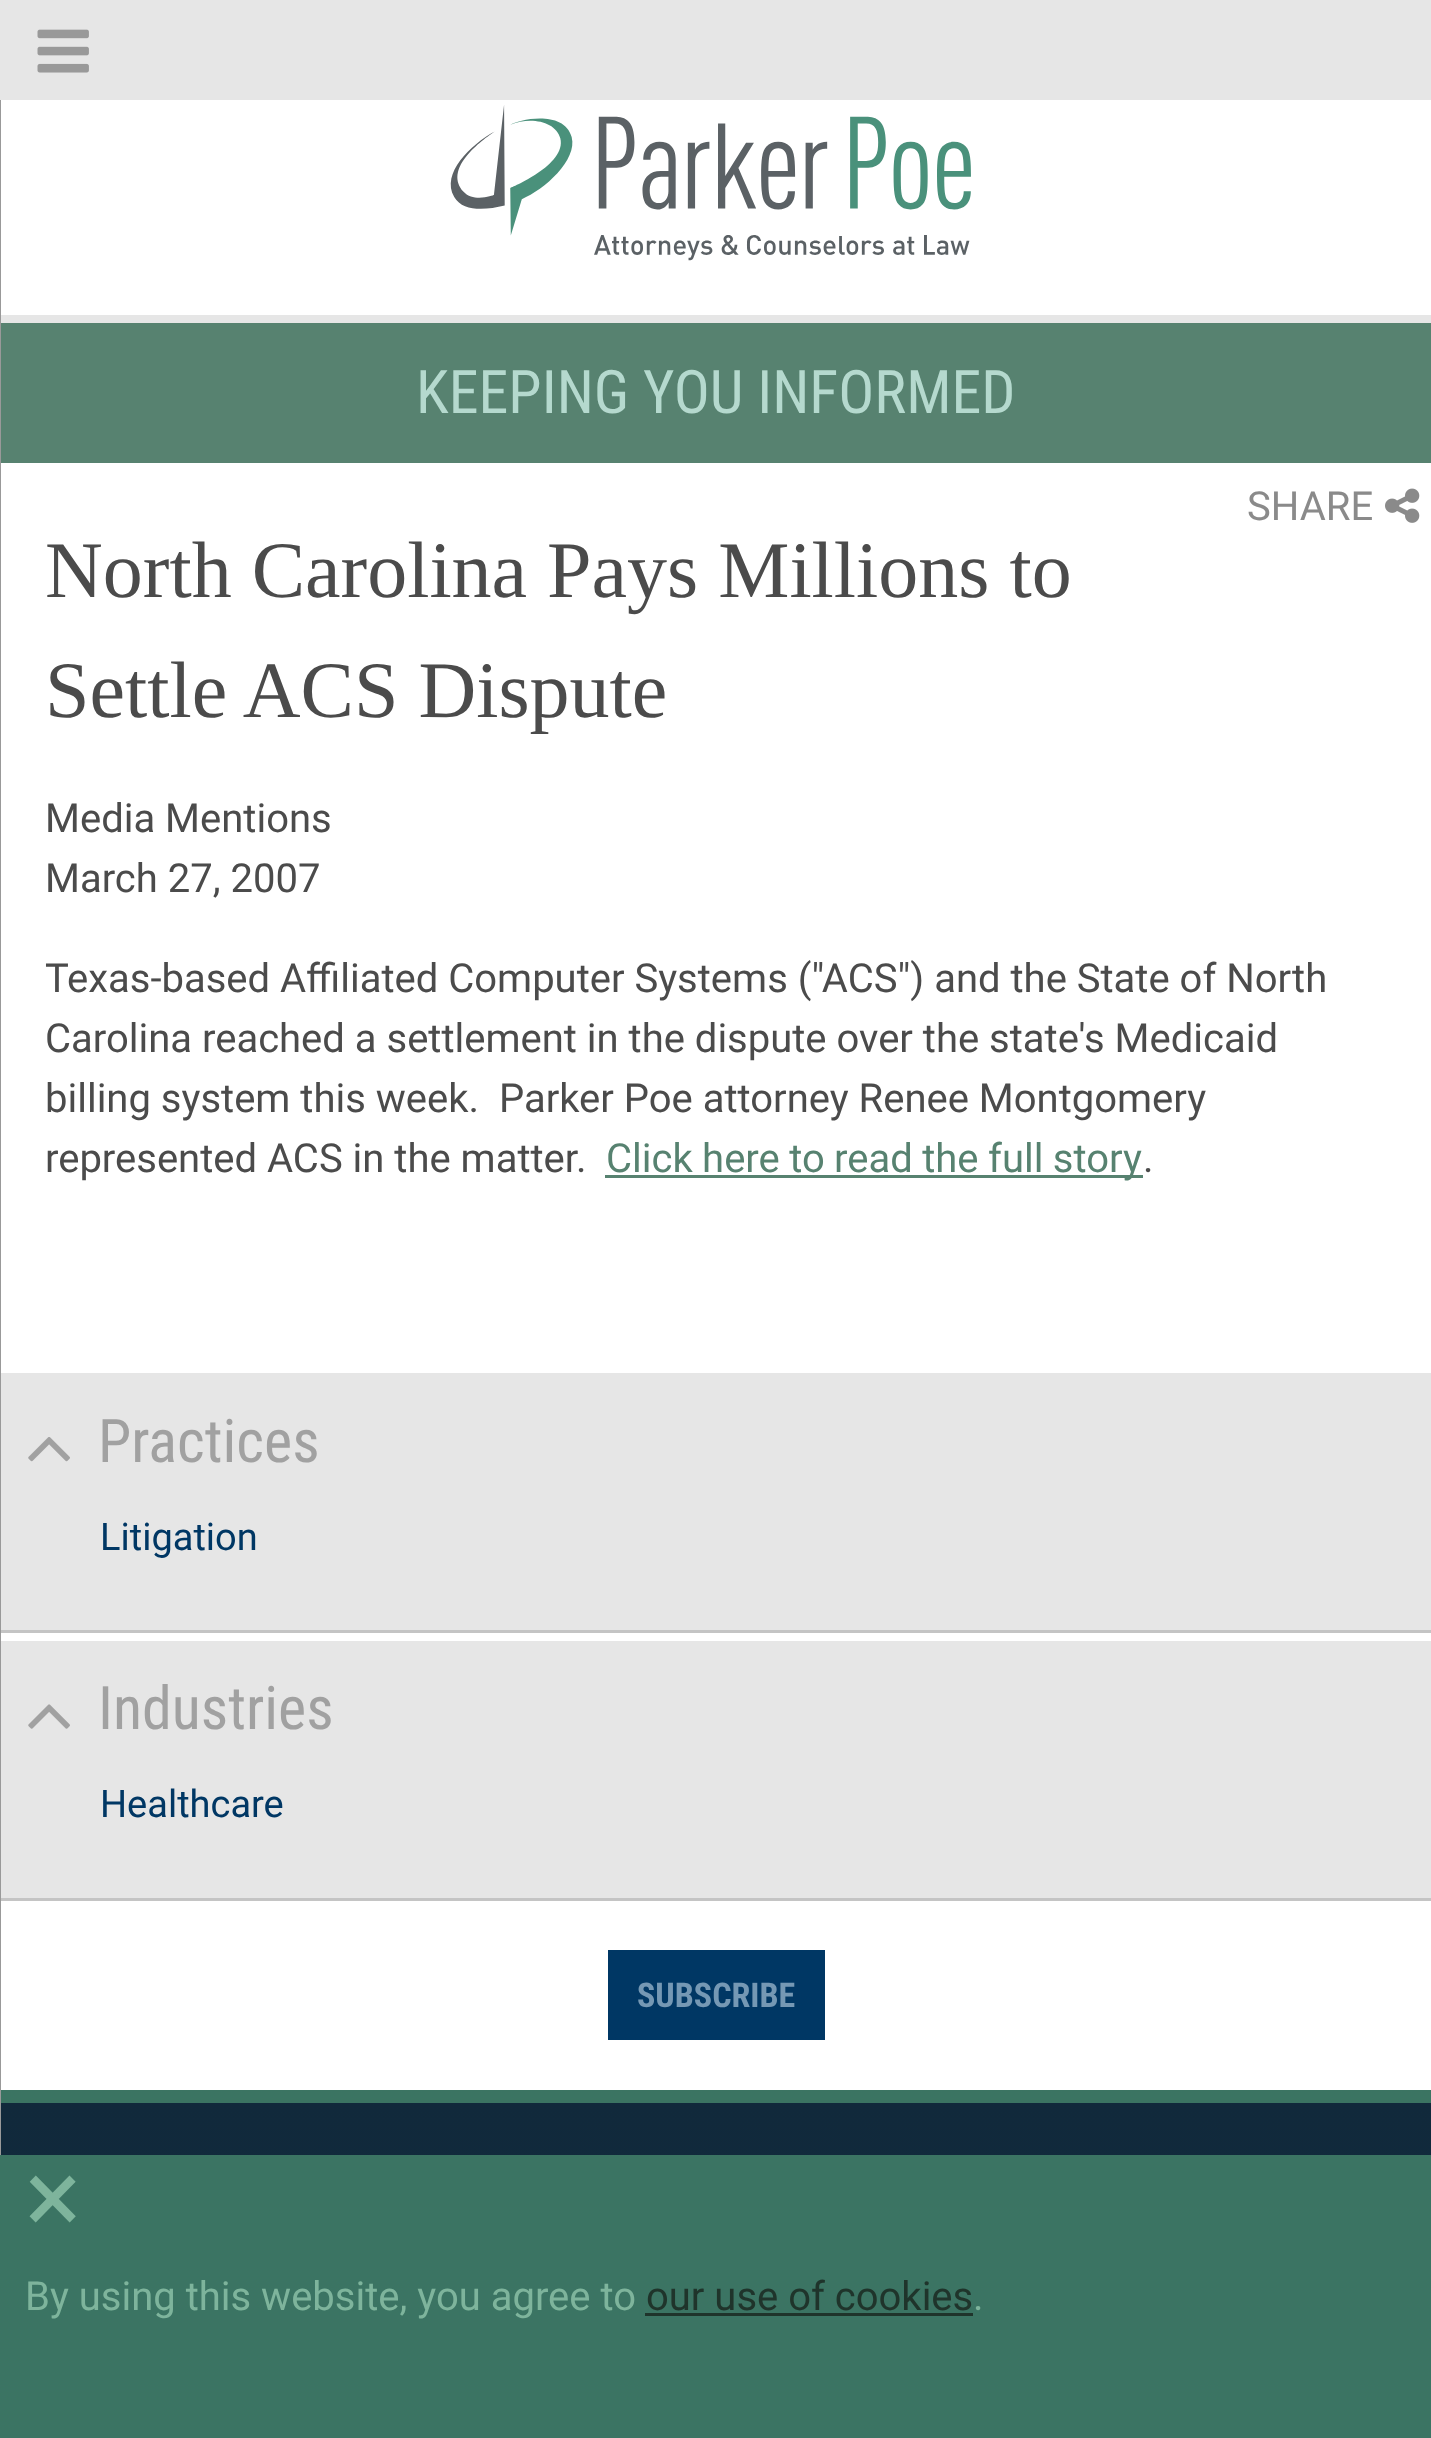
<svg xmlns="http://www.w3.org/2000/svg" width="1431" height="2438">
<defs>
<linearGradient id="g1" gradientUnits="userSpaceOnUse" x1="716" y1="2103" x2="716" y2="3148"><stop offset="0" stop-color="#11293b"/><stop offset="1" stop-color="#11314b"/></linearGradient>
</defs>
<rect width="100%" height="100%" fill="#fff"/>
<rect width="1431" height="100" fill="#e6e6e6"/>
<image x="37" y="29" width="52" height="44" href="media/1.png"/>
<rect y="315" width="1431" height="8" fill="#e6e6e6"/>
<rect y="1630" width="1431" height="3" fill="#c4c4c4"/>
<rect y="1898" width="1431" height="3" fill="#c4c4c4"/>
<rect y="100" width="1" height="2055" fill="#999"/>
<image x="450" y="105" width="521" height="156" href="media/2.png"/>
<rect x="1" y="323" width="1430" height="140" fill="#578270"/>
<text x="416" y="413" style="font-family:Roboto Condensed;font-size:60px;fill:#b5d9ce">KEEPING YOU INFORMED</text>
<text x="1247" y="520" style="font-family:Roboto;font-size:40px;fill:#8a8a8a">SHARE</text>
<image x="1385" y="488" width="35" height="35" href="media/3.png"/>
<text x="45" y="597" style="font-family:Liberation Serif;font-size:80px;fill:#4b4b4b">North Carolina Pays Millions to</text>
<text x="45" y="717" style="font-family:Liberation Serif;font-size:80px;fill:#4b4b4b">Settle ACS Dispute</text>
<text x="45" y="832" style="font-family:Roboto;font-size:40px;fill:#4b4b4b">Media Mentions</text>
<text x="45" y="892" style="font-family:Roboto;font-size:40px;fill:#4b4b4b">March 27, 2007</text>
<text x="45" y="992" style="font-family:Roboto;font-size:40px;fill:#4b4b4b">Texas-based Affiliated Computer Systems ("ACS") and the State of North</text>
<text x="45" y="1052" style="font-family:Roboto;font-size:40px;fill:#4b4b4b">Carolina reached a settlement in the dispute over the state's Medicaid</text>
<text x="45" y="1112" style="font-family:Roboto;font-size:40px;fill:#4b4b4b" xml:space="preserve">billing system this week.  Parker Poe attorney Renee Montgomery</text>
<text x="45" y="1172" style="font-family:Roboto;font-size:40px;fill:#4b4b4b">represented ACS in the matter.</text>
<rect x="605" y="1175" width="538" height="3" fill="#578270"/>
<text x="606" y="1172" word-spacing="-0.5" style="font-family:Roboto;font-size:40px;fill:#578270">Click here to read the full story</text>
<text x="1143" y="1172" style="font-family:Roboto;font-size:40px;fill:#4b4b4b">.</text>
<rect x="1" y="1373" width="1430" height="257" fill="#e6e6e6"/>
<image x="28" y="1437" width="42" height="25" href="media/4.png"/>
<text x="98" y="1462" style="font-family:Roboto Condensed;font-size:60px;fill:#a1a1a1">Practices</text>
<text x="100" y="1550" style="font-family:Roboto;font-size:38px;fill:#003764">Litigation</text>
<rect x="1" y="1641" width="1430" height="257" fill="#e6e6e6"/>
<image x="28" y="1704" width="42" height="25" href="media/5.png"/>
<text x="98" y="1729" style="font-family:Roboto Condensed;font-size:60px;fill:#a1a1a1">Industries</text>
<text x="100" y="1817" style="font-family:Roboto;font-size:38px;fill:#003764">Healthcare</text>
<rect x="608" y="1950" width="217" height="90" fill="#003764"/>
<text x="637" y="2007" style="font-family:Roboto Condensed;font-size:34px;font-weight:bold;fill:#7598b4">SUBSCRIBE</text>
<rect x="1" y="2103" width="1430" height="52" fill="url(#g1)"/>
<rect x="1" y="2090" width="1430" height="13" fill="#3b7462"/>
<rect y="2155" width="1431" height="283" fill="#3b7463"/>
<text x="25" y="2233" style="font-family:Roboto;font-size:105px;fill:#7eb49c">×</text>
<text x="25" y="2310" style="font-family:Roboto;font-size:40px;fill:#7eb49c">By using this website, you agree to</text>
<text x="646" y="2310" style="font-family:Roboto;font-size:40px;fill:#1f342b">our use of cookies</text>
<rect x="645" y="2313" width="328" height="3" fill="#1f342b"/>
<text x="973" y="2310" style="font-family:Roboto;font-size:40px;fill:#7eb49c">.</text>
</svg>
